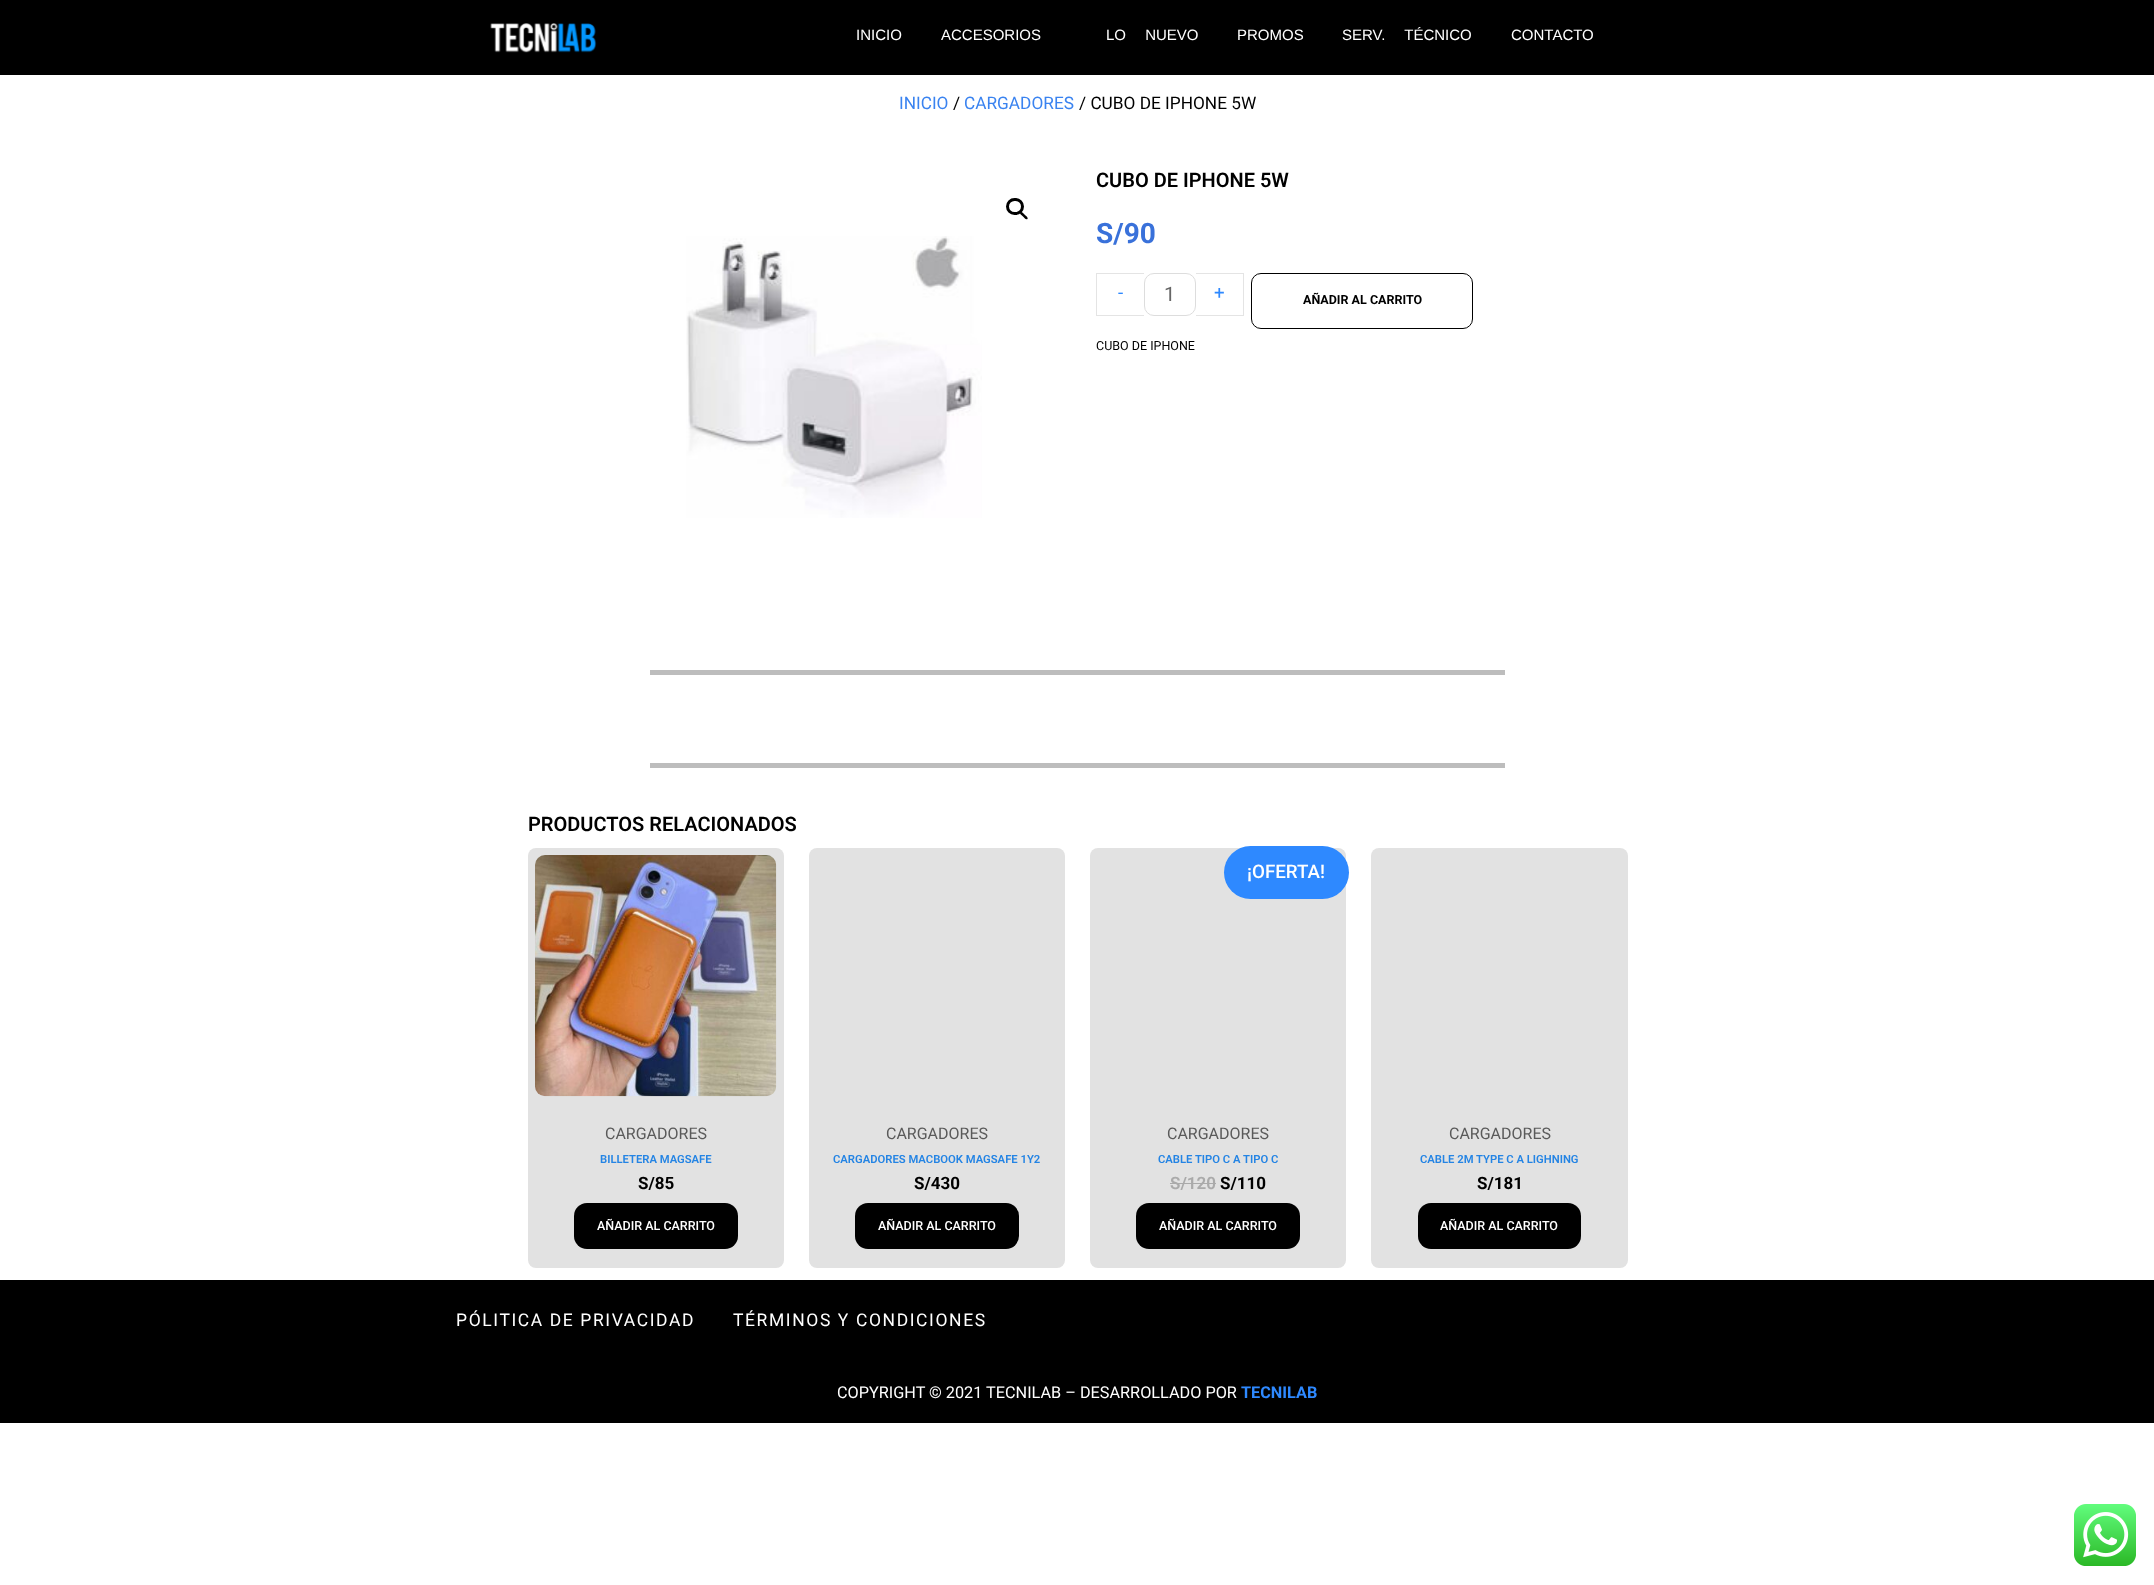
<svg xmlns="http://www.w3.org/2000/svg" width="2154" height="1585">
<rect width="100%" height="100%" fill="#fff"/>
<rect width="2154" height="75" fill="#000"/>
<image x="490" y="23" width="107" height="30" href="media/1.png"/>
<text x="856" y="40" style="font-family:Liberation Sans;font-size:15px;fill:#fff">INICIO</text>
<text x="941" y="40" style="font-family:Liberation Sans;font-size:15px;fill:#fff">ACCESORIOS</text>
<text x="1106" y="40" word-spacing="15" style="font-family:Liberation Sans;font-size:15px;fill:#fff">LO NUEVO</text>
<text x="1237" y="40" style="font-family:Liberation Sans;font-size:15px;fill:#fff">PROMOS</text>
<text x="1342" y="40" word-spacing="15" style="font-family:Liberation Sans;font-size:15px;fill:#fff">SERV. TÉCNICO</text>
<text x="1511" y="40" style="font-family:Liberation Sans;font-size:15px;fill:#fff">CONTACTO</text>
<text x="899" y="109" style="font-family:Roboto;font-size:17.25px;fill:#3a83f0">INICIO</text>
<text x="953" y="109" style="font-family:Roboto;font-size:17.25px;fill:#000">/</text>
<text x="964" y="109" style="font-family:Roboto;font-size:17.25px;fill:#3a83f0">CARGADORES</text>
<text x="1079" y="109" style="font-family:Roboto;font-size:17.25px;fill:#000">/ CUBO DE IPHONE 5W</text>
<rect x="1007.5" y="199.5" width="15" height="14" rx="7" fill="none" stroke="#000" stroke-width="3"/>
<path d="M1020 212c1.5-1.5 4 2 4.5 2.5c1 1 4 3 3 4.5c-1.5 1.5-4-2-4.5-2.5c-1-1-4-3-3-4.5z" fill="#000"/>
<image x="686" y="236" width="296" height="282" href="media/2.png"/>
<text x="1096" y="187" style="font-family:Roboto;font-size:20px;font-weight:600;fill:#000">CUBO DE IPHONE 5W</text>
<text x="1096" y="243" style="font-family:Roboto;font-size:28px;font-weight:bold;fill:#3971da">S/90</text>
<rect x="1096" y="273" width="48" height="1" fill="#e4e4e4"/>
<rect x="1096" y="315" width="48" height="1" fill="#e4e4e4"/>
<rect x="1096" y="273" width="1" height="43" fill="#e4e4e4"/>
<text x="1118" y="299" style="font-family:Roboto;font-size:18.75px;fill:#2e89ff">-</text>
<rect x="1144.5" y="273.5" width="51" height="42" rx="9.5" fill="none" stroke="#ddd"/>
<text x="1164" y="301" style="font-family:Roboto;font-size:20px;fill:#666">1</text>
<rect x="1196" y="273" width="48" height="1" fill="#e4e4e4"/>
<rect x="1243" y="273" width="1" height="43" fill="#e4e4e4"/>
<rect x="1196" y="315" width="48" height="1" fill="#e4e4e4"/>
<text x="1214" y="299" style="font-family:Roboto;font-size:18.75px;fill:#2e89ff">+</text>
<rect x="1251.5" y="273.5" width="221" height="55" rx="9.5" fill="none" stroke="#000"/>
<text x="1303" y="304" style="font-family:Roboto;font-size:12.5px;font-weight:bold;fill:#000">AÑADIR AL CARRITO</text>
<text x="1096" y="350" style="font-family:Roboto;font-size:12.5px;fill:#000">CUBO DE IPHONE</text>
<rect x="650" y="670" width="855" height="5" fill="#bdbdbd"/>
<rect x="650" y="763" width="855" height="5" fill="#bdbdbd"/>
<text x="528" y="831" style="font-family:Roboto;font-size:20px;font-weight:600;fill:#000">PRODUCTOS RELACIONADOS</text>
<rect x="528" y="848" width="256" height="420" rx="8" fill="#e2e2e2"/>
<image x="535" y="855" width="242" height="242" href="media/3.png"/>
<text x="605" y="1139" style="font-family:Roboto;font-size:16px;fill:#5a5a5a">CARGADORES</text>
<text x="600" y="1163" style="font-family:Roboto;font-size:11.25px;font-weight:600;fill:#2484e4">BILLETERA MAGSAFE</text>
<text x="638" y="1189" style="font-family:Roboto;font-size:17px;font-weight:bold;fill:#000">S/85</text>
<rect x="574" y="1203" width="164" height="46" rx="13" fill="#000"/>
<text x="597" y="1230" style="font-family:Roboto;font-size:12.5px;font-weight:500;fill:#fff">AÑADIR AL CARRITO</text>
<rect x="809" y="848" width="256" height="420" rx="8" fill="#e2e2e2"/>
<text x="886" y="1139" style="font-family:Roboto;font-size:16px;fill:#5a5a5a">CARGADORES</text>
<text x="833" y="1163" style="font-family:Roboto;font-size:11.25px;font-weight:600;fill:#2484e4">CARGADORES MACBOOK MAGSAFE 1Y2</text>
<text x="914" y="1189" style="font-family:Roboto;font-size:17px;font-weight:bold;fill:#000">S/430</text>
<rect x="855" y="1203" width="164" height="46" rx="13" fill="#000"/>
<text x="878" y="1230" style="font-family:Roboto;font-size:12.5px;font-weight:500;fill:#fff">AÑADIR AL CARRITO</text>
<rect x="1090" y="848" width="256" height="420" rx="8" fill="#e2e2e2"/>
<rect x="1224" y="846" width="125" height="53" rx="26.5" fill="#2e89ff"/>
<text x="1247" y="878" style="font-family:Roboto;font-size:18.75px;font-weight:500;fill:#fff">¡OFERTA!</text>
<text x="1167" y="1139" style="font-family:Roboto;font-size:16px;fill:#5a5a5a">CARGADORES</text>
<text x="1158" y="1163" style="font-family:Roboto;font-size:11.25px;font-weight:600;fill:#2484e4">CABLE TIPO C A TIPO C</text>
<text x="1170" y="1189" style="font-family:Roboto;font-size:17px;font-weight:600;fill:#aaa">S/120</text>
<rect x="1170" y="1183" width="46" height="1" fill="#aaa"/>
<text x="1220" y="1189" style="font-family:Roboto;font-size:17px;font-weight:bold;fill:#000">S/110</text>
<rect x="1136" y="1203" width="164" height="46" rx="13" fill="#000"/>
<text x="1159" y="1230" style="font-family:Roboto;font-size:12.5px;font-weight:500;fill:#fff">AÑADIR AL CARRITO</text>
<rect x="1371" y="848" width="257" height="420" rx="8" fill="#e2e2e2"/>
<text x="1449" y="1139" style="font-family:Roboto;font-size:16px;fill:#5a5a5a">CARGADORES</text>
<text x="1420" y="1163" style="font-family:Roboto;font-size:11.25px;font-weight:600;fill:#2484e4">CABLE 2M TYPE C A LIGHNING</text>
<text x="1477" y="1189" style="font-family:Roboto;font-size:17px;font-weight:bold;fill:#000">S/181</text>
<rect x="1418" y="1203" width="163" height="46" rx="13" fill="#000"/>
<text x="1440" y="1230" style="font-family:Roboto;font-size:12.5px;font-weight:500;fill:#fff">AÑADIR AL CARRITO</text>
<rect y="1280" width="2154" height="143" fill="#000"/>
<text x="456" y="1326" style="font-family:Roboto;font-size:17.5px;letter-spacing:1.6px;fill:#fff">PÓLITICA DE PRIVACIDAD</text>
<text x="733" y="1326" style="font-family:Roboto;font-size:17.5px;letter-spacing:1.6px;fill:#fff">TÉRMINOS Y CONDICIONES</text>
<text x="837" y="1398" style="font-family:Roboto;font-size:16.25px;fill:#fff">COPYRIGHT © 2021 TECNILAB – DESARROLLADO POR</text>
<text x="1241" y="1398" style="font-family:Roboto;font-size:16.25px;font-weight:bold;fill:#2e89ff">TECNILAB</text>
<image x="2074" y="1504" width="62" height="62" href="media/4.png"/>
</svg>
